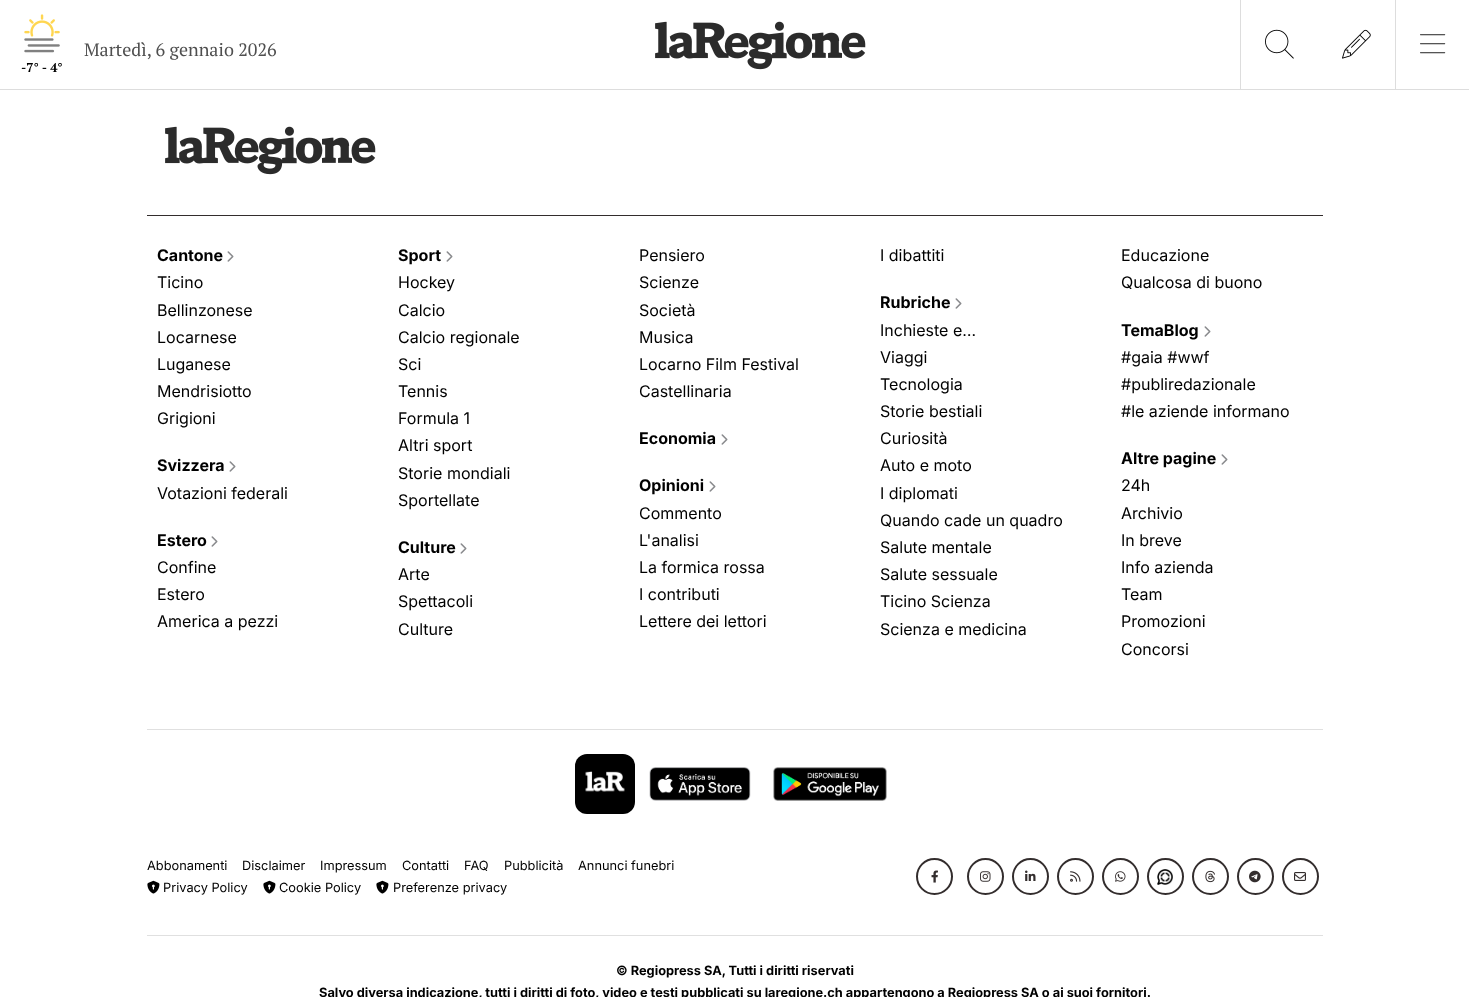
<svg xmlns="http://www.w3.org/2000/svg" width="1469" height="997">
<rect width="100%" height="100%" fill="#fff"/>
<rect y="89" width="1469" height="1" fill="#ddd"/>
<text x="84" y="56" style="font-family:PT Serif;font-size:18px;fill:#4f4f4f">Martedì, 6 gennaio 2026</text>
<image x="24" y="14" width="36" height="39" href="media/1.png"/>
<text x="21" y="72" style="font-family:PT Serif;font-size:12.8px;font-weight:bold;fill:#000">-7° - 4°</text>
<image x="655" y="21" width="211" height="49" href="media/2.png"/>
<rect x="1240" width="1" height="90" fill="#ddd"/>
<image x="1265" y="29" width="29" height="30" href="media/3.png"/>
<image x="1342" y="29" width="29" height="30" href="media/4.png"/>
<rect x="1395" width="1" height="90" fill="#ddd"/>
<image x="1420" y="34" width="26" height="20" href="media/5.png"/>
<image x="165" y="126" width="211" height="49" href="media/2.png"/>
<rect x="147" y="215" width="1176" height="1" fill="#332d2d"/>
<text x="157" y="261" style="font-family:Inter;font-size:16px;font-weight:bold;fill:#000">Cantone</text>
<image x="227" y="251" width="7" height="11" href="media/6.png"/>
<text x="157" y="288" style="font-family:Inter;font-size:16px;fill:#000">Ticino</text>
<text x="157" y="316" style="font-family:Inter;font-size:16px;fill:#000">Bellinzonese</text>
<text x="157" y="343" style="font-family:Inter;font-size:16px;fill:#000">Locarnese</text>
<text x="157" y="370" style="font-family:Inter;font-size:16px;fill:#000">Luganese</text>
<text x="157" y="397" style="font-family:Inter;font-size:16px;fill:#000">Mendrisiotto</text>
<text x="157" y="424" style="font-family:Inter;font-size:16px;fill:#000">Grigioni</text>
<text x="398" y="261" style="font-family:Inter;font-size:16px;font-weight:bold;fill:#000">Sport</text>
<image x="446" y="251" width="7" height="11" href="media/6.png"/>
<text x="398" y="288" style="font-family:Inter;font-size:16px;fill:#000">Hockey</text>
<text x="398" y="316" style="font-family:Inter;font-size:16px;fill:#000">Calcio</text>
<text x="398" y="343" style="font-family:Inter;font-size:16px;fill:#000">Calcio regionale</text>
<text x="398" y="370" style="font-family:Inter;font-size:16px;fill:#000">Sci</text>
<text x="398" y="397" style="font-family:Inter;font-size:16px;fill:#000">Tennis</text>
<text x="398" y="424" style="font-family:Inter;font-size:16px;fill:#000">Formula 1</text>
<text x="398" y="451" style="font-family:Inter;font-size:16px;fill:#000">Altri sport</text>
<text x="398" y="479" style="font-family:Inter;font-size:16px;fill:#000">Storie mondiali</text>
<text x="398" y="506" style="font-family:Inter;font-size:16px;fill:#000">Sportellate</text>
<text x="639" y="261" style="font-family:Inter;font-size:16px;fill:#000">Pensiero</text>
<text x="639" y="288" style="font-family:Inter;font-size:16px;fill:#000">Scienze</text>
<text x="639" y="316" style="font-family:Inter;font-size:16px;fill:#000">Società</text>
<text x="639" y="343" style="font-family:Inter;font-size:16px;fill:#000">Musica</text>
<text x="639" y="370" style="font-family:Inter;font-size:16px;fill:#000">Locarno Film Festival</text>
<text x="639" y="397" style="font-family:Inter;font-size:16px;fill:#000">Castellinaria</text>
<text x="398" y="580" style="font-family:Inter;font-size:16px;fill:#000">Arte</text>
<text x="398" y="607" style="font-family:Inter;font-size:16px;fill:#000">Spettacoli</text>
<text x="398" y="635" style="font-family:Inter;font-size:16px;fill:#000">Culture</text>
<text x="398" y="553" style="font-family:Inter;font-size:16px;font-weight:bold;fill:#000">Culture</text>
<image x="460" y="543" width="7" height="11" href="media/6.png"/>
<text x="880" y="261" style="font-family:Inter;font-size:16px;fill:#000">I dibattiti</text>
<text x="639" y="519" style="font-family:Inter;font-size:16px;fill:#000">Commento</text>
<text x="639" y="546" style="font-family:Inter;font-size:16px;fill:#000">L'analisi</text>
<text x="639" y="573" style="font-family:Inter;font-size:16px;fill:#000">La formica rossa</text>
<text x="639" y="600" style="font-family:Inter;font-size:16px;fill:#000">I contributi</text>
<text x="639" y="627" style="font-family:Inter;font-size:16px;fill:#000">Lettere dei lettori</text>
<text x="639" y="491" style="font-family:Inter;font-size:16px;font-weight:bold;fill:#000">Opinioni</text>
<image x="709" y="481" width="7" height="11" href="media/6.png"/>
<text x="1121" y="261" style="font-family:Inter;font-size:16px;fill:#000">Educazione</text>
<text x="1121" y="288" style="font-family:Inter;font-size:16px;fill:#000">Qualcosa di buono</text>
<text x="880" y="336" style="font-family:Inter;font-size:16px;fill:#000">Inchieste e…</text>
<text x="880" y="363" style="font-family:Inter;font-size:16px;fill:#000">Viaggi</text>
<text x="880" y="390" style="font-family:Inter;font-size:16px;fill:#000">Tecnologia</text>
<text x="880" y="417" style="font-family:Inter;font-size:16px;fill:#000">Storie bestiali</text>
<text x="880" y="444" style="font-family:Inter;font-size:16px;fill:#000">Curiosità</text>
<text x="880" y="471" style="font-family:Inter;font-size:16px;fill:#000">Auto e moto</text>
<text x="880" y="499" style="font-family:Inter;font-size:16px;fill:#000">I diplomati</text>
<text x="880" y="526" style="font-family:Inter;font-size:16px;fill:#000">Quando cade un quadro</text>
<text x="880" y="553" style="font-family:Inter;font-size:16px;fill:#000">Salute mentale</text>
<text x="880" y="580" style="font-family:Inter;font-size:16px;fill:#000">Salute sessuale</text>
<text x="880" y="607" style="font-family:Inter;font-size:16px;fill:#000">Ticino Scienza</text>
<text x="880" y="635" style="font-family:Inter;font-size:16px;fill:#000">Scienza e medicina</text>
<text x="880" y="308" style="font-family:Inter;font-size:16px;font-weight:bold;fill:#000">Rubriche</text>
<image x="955" y="298" width="7" height="11" href="media/6.png"/>
<text x="1121" y="336" style="font-family:Inter;font-size:16px;font-weight:bold;fill:#000">TemaBlog</text>
<image x="1204" y="326" width="7" height="11" href="media/6.png"/>
<text x="1121" y="363" style="font-family:Inter;font-size:16px;fill:#000">#gaia #wwf</text>
<text x="1121" y="390" style="font-family:Inter;font-size:16px;fill:#000">#publiredazionale</text>
<text x="1121" y="417" style="font-family:Inter;font-size:16px;fill:#000">#le aziende informano</text>
<text x="639" y="444" style="font-family:Inter;font-size:16px;font-weight:bold;fill:#000">Economia</text>
<image x="721" y="434" width="7" height="11" href="media/6.png"/>
<text x="157" y="471" style="font-family:Inter;font-size:16px;font-weight:bold;fill:#000">Svizzera</text>
<image x="229" y="461" width="7" height="11" href="media/6.png"/>
<text x="157" y="499" style="font-family:Inter;font-size:16px;fill:#000">Votazioni federali</text>
<text x="1121" y="464" style="font-family:Inter;font-size:16px;font-weight:bold;fill:#000">Altre pagine</text>
<image x="1221" y="454" width="7" height="11" href="media/6.png"/>
<text x="1121" y="491" style="font-family:Inter;font-size:16px;fill:#000">24h</text>
<text x="1121" y="519" style="font-family:Inter;font-size:16px;fill:#000">Archivio</text>
<text x="1121" y="546" style="font-family:Inter;font-size:16px;fill:#000">In breve</text>
<text x="1121" y="573" style="font-family:Inter;font-size:16px;fill:#000">Info azienda</text>
<text x="1121" y="600" style="font-family:Inter;font-size:16px;fill:#000">Team</text>
<text x="1121" y="627" style="font-family:Inter;font-size:16px;fill:#000">Promozioni</text>
<text x="1121" y="655" style="font-family:Inter;font-size:16px;fill:#000">Concorsi</text>
<text x="157" y="546" style="font-family:Inter;font-size:16px;font-weight:bold;fill:#000">Estero</text>
<image x="211" y="536" width="7" height="11" href="media/6.png"/>
<text x="157" y="573" style="font-family:Inter;font-size:16px;fill:#000">Confine</text>
<text x="157" y="600" style="font-family:Inter;font-size:16px;fill:#000">Estero</text>
<text x="157" y="627" style="font-family:Inter;font-size:16px;fill:#000">America a pezzi</text>
<rect x="147" y="729" width="1176" height="1" fill="#e0e0e0"/>
<image x="575" y="754" width="60" height="60" href="media/7.png"/>
<image x="649" y="767" width="102" height="34" href="media/8.png"/>
<image x="773" y="767" width="114" height="34" href="media/9.png"/>
<text x="147" y="870" style="font-family:Inter;font-size:12.8px;fill:#000">Abbonamenti</text>
<text x="242" y="870" style="font-family:Inter;font-size:12.8px;fill:#000">Disclaimer</text>
<text x="320" y="870" style="font-family:Inter;font-size:12.8px;fill:#000">Impressum</text>
<text x="402" y="870" style="font-family:Inter;font-size:12.8px;fill:#000">Contatti</text>
<text x="464" y="870" style="font-family:Inter;font-size:12.8px;fill:#000">FAQ</text>
<text x="504" y="870" style="font-family:Inter;font-size:12.8px;fill:#000">Pubblicità</text>
<text x="578" y="870" style="font-family:Inter;font-size:12.8px;fill:#000">Annunci funebri</text>
<image x="147" y="880" width="13" height="14" href="media/10.png"/>
<text x="163" y="892" style="font-family:Inter;font-size:12.8px;fill:#000">Privacy Policy</text>
<image x="263" y="880" width="13" height="14" href="media/10.png"/>
<text x="279" y="892" style="font-family:Inter;font-size:12.8px;fill:#000">Cookie Policy</text>
<image x="376" y="880" width="13" height="14" href="media/10.png"/>
<text x="393" y="892" style="font-family:Inter;font-size:12.8px;fill:#000">Preferenze privacy</text>
<circle cx="934.5" cy="876.5" r="17.5" fill="none" stroke="#332d2d" stroke-width="2"/>
<image x="931" y="870" width="7" height="13" href="media/11.png"/>
<circle cx="985.5" cy="876.5" r="17.5" fill="none" stroke="#332d2d" stroke-width="2"/>
<image x="980" y="871" width="11" height="11" href="media/12.png"/>
<circle cx="1030.5" cy="876.5" r="17.5" fill="none" stroke="#332d2d" stroke-width="2"/>
<image x="1025" y="870" width="11" height="11" href="media/13.png"/>
<circle cx="1075.5" cy="876.5" r="17.5" fill="none" stroke="#332d2d" stroke-width="2"/>
<image x="1070" y="871" width="11" height="11" href="media/14.png"/>
<circle cx="1120.5" cy="876.5" r="17.5" fill="none" stroke="#332d2d" stroke-width="2"/>
<image x="1115" y="871" width="11" height="11" href="media/15.png"/>
<circle cx="1165.5" cy="876.5" r="17.5" fill="none" stroke="#332d2d" stroke-width="2"/>
<image x="1157" y="869" width="16" height="16" href="media/16.png"/>
<circle cx="1210.5" cy="876.5" r="17.5" fill="none" stroke="#332d2d" stroke-width="2"/>
<image x="1205" y="870" width="10" height="13" href="media/17.png"/>
<circle cx="1255.5" cy="876.5" r="17.5" fill="none" stroke="#332d2d" stroke-width="2"/>
<image x="1249" y="870" width="12" height="13" href="media/18.png"/>
<circle cx="1300.5" cy="876.5" r="17.5" fill="none" stroke="#332d2d" stroke-width="2"/>
<image x="1294" y="872" width="12" height="9" href="media/19.png"/>
<rect x="147" y="935" width="1176" height="1" fill="#e0e0e0"/>
<text x="616" y="975" style="font-family:Inter;font-size:12.8px;font-weight:bold;fill:#000">© Regiopress SA, Tutti i diritti riservati</text>
<text x="319" y="997" style="font-family:Inter;font-size:12.8px;font-weight:bold;fill:#000">Salvo diversa indicazione, tutti i diritti di foto, video e testi pubblicati su laregione.ch appartengono a Regiopress SA o ai suoi fornitori.</text>
</svg>
